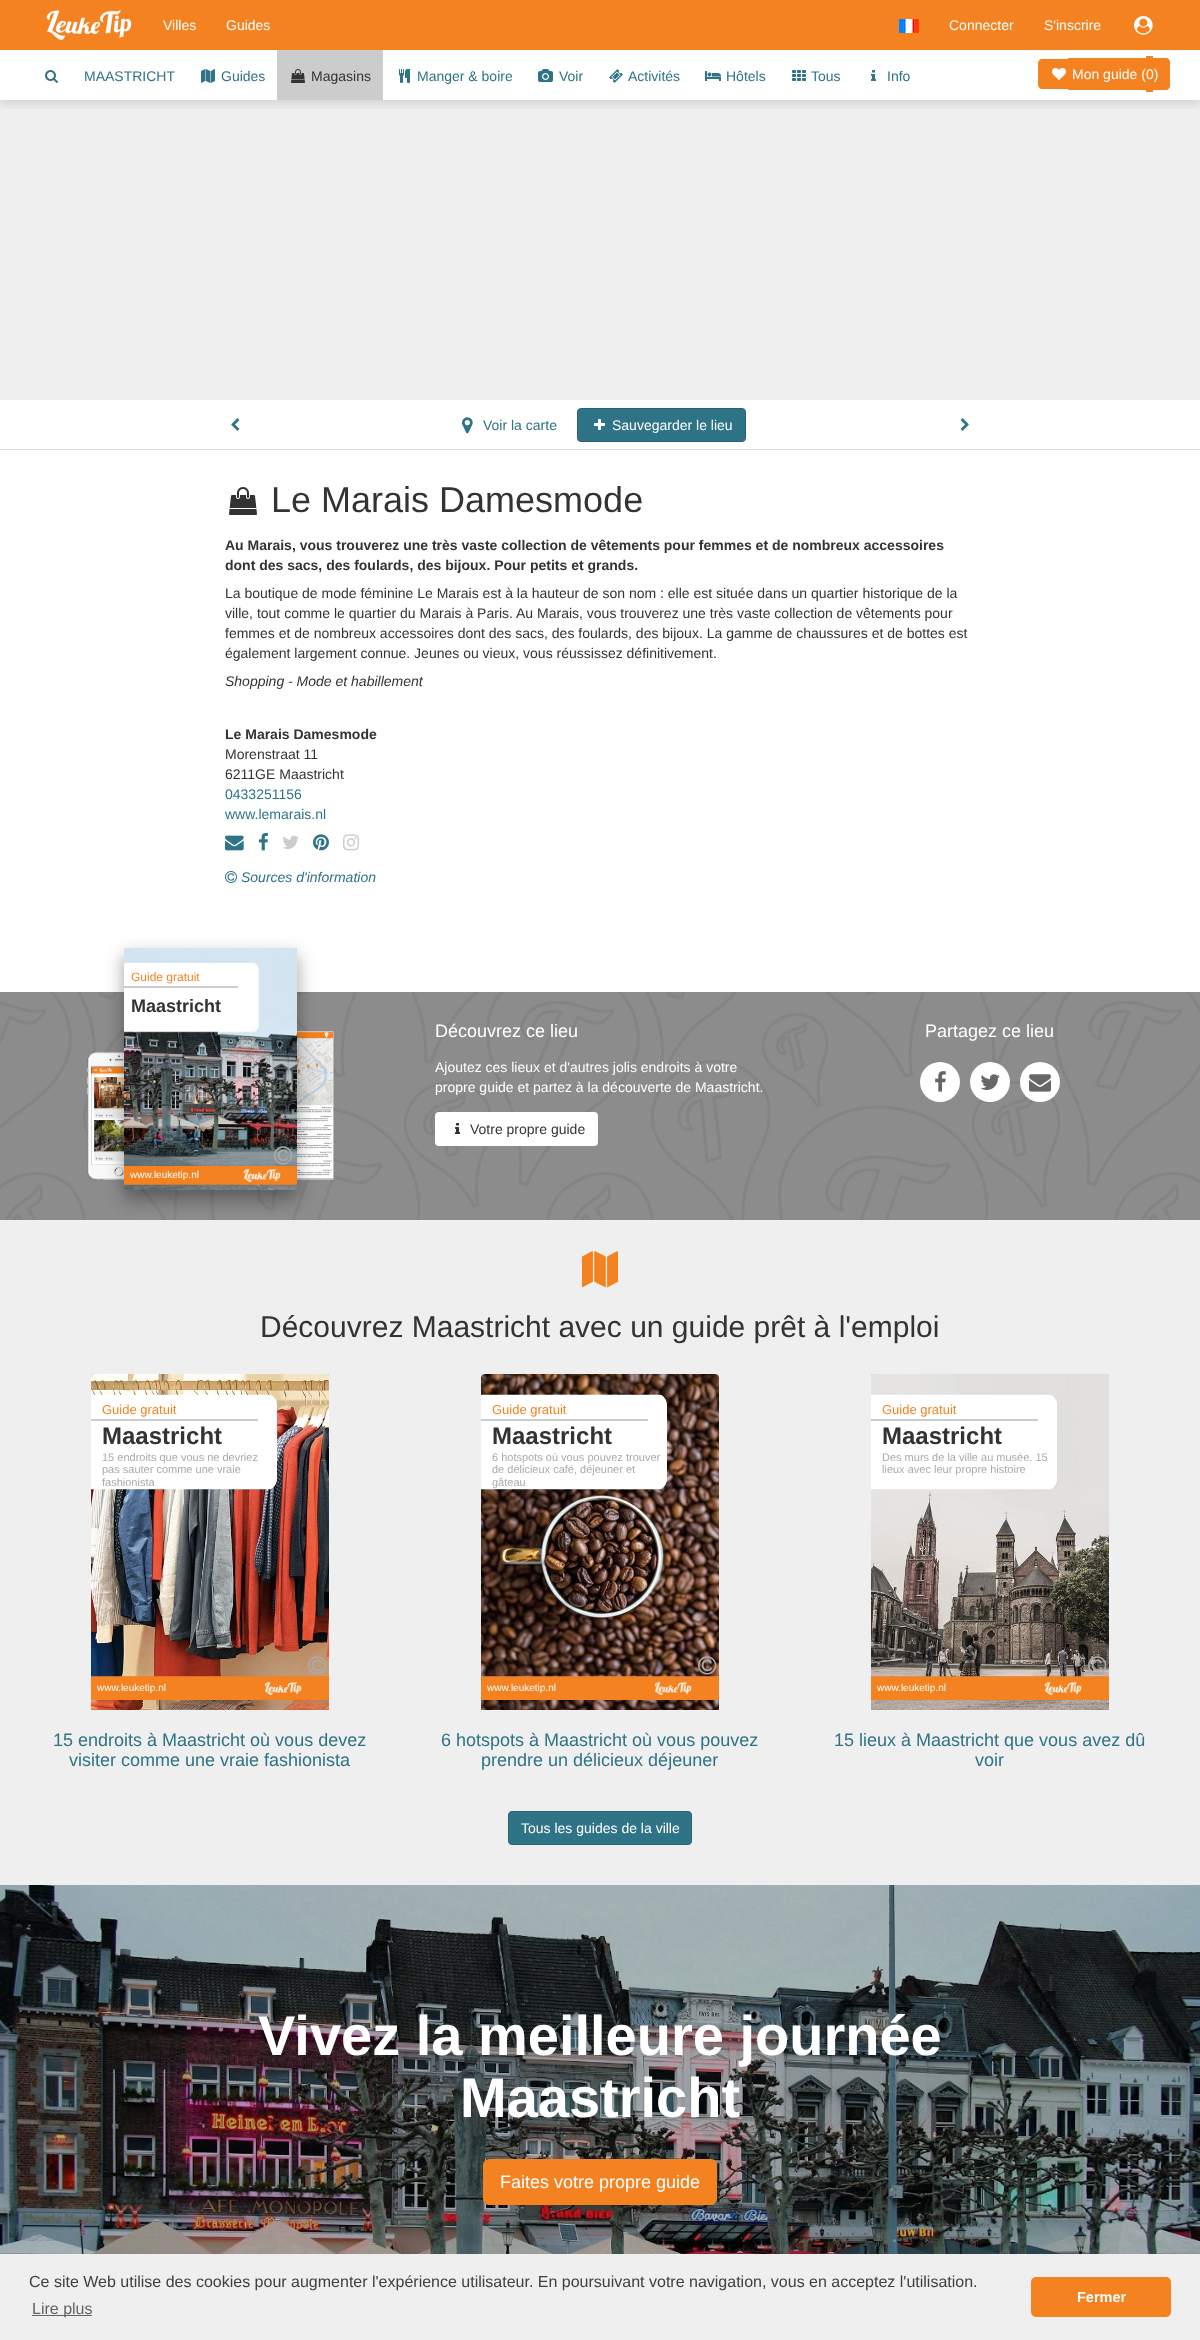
<svg xmlns="http://www.w3.org/2000/svg" width="1200" height="2340">
<defs>
<clipPath id="clip1"><rect x="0" y="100" width="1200" height="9"/></clipPath>
</defs>
<rect width="100%" height="100%" fill="#fff"/>
<rect width="1200" height="50" fill="#f58220"/>
<image x="46" y="10" width="86" height="30" href="media/1.png"/>
<text x="163" y="30" style="font-family:Liberation Sans;font-size:14px;fill:#fff">Villes</text>
<text x="226" y="30" style="font-family:Liberation Sans;font-size:14px;fill:#fff">Guides</text>
<image x="899" y="19" width="20" height="14" href="media/2.png"/>
<text x="949" y="30" style="font-family:Liberation Sans;font-size:14px;fill:#fff">Connecter</text>
<text x="1044" y="30" style="font-family:Liberation Sans;font-size:14px;fill:#fff">S'inscrire</text>
<image x="1134" y="16" width="19" height="19" href="media/3.png"/>
<rect y="100" width="1200" height="300" fill="#efefef"/>
<g clip-path="url(#clip1)">
<rect y="55" width="1200" height="50" fill="#0000001a" filter="blur(5px)"/>
</g>
<image x="45" y="70" width="13" height="13" href="media/4.png"/>
<text x="84" y="81" style="font-family:Liberation Sans;font-size:14px;fill:#2f7386">MAASTRICHT</text>
<image x="201" y="69" width="14" height="14" href="media/5.png"/>
<text x="221" y="81" style="font-family:Liberation Sans;font-size:14px;fill:#2f7386">Guides</text>
<rect x="277" y="50" width="106" height="50" fill="#ccc"/>
<image x="291" y="69" width="14" height="14" href="media/6.png"/>
<text x="311" y="81" style="font-family:Liberation Sans;font-size:14px;fill:#333">Magasins</text>
<image x="399" y="69" width="11" height="14" href="media/7.png"/>
<text x="417" y="81" style="font-family:Liberation Sans;font-size:14px;fill:#2f7386">Manger &amp; boire</text>
<image x="538" y="69" width="15" height="13" href="media/8.png"/>
<text x="559" y="81" style="font-family:Liberation Sans;font-size:14px;fill:#2f7386">Voir</text>
<image x="609" y="69" width="14" height="14" href="media/9.png"/>
<text x="628" y="81" style="font-family:Liberation Sans;font-size:14px;fill:#2f7386">Activités</text>
<image x="705" y="71" width="16" height="10" href="media/10.png"/>
<text x="726" y="81" style="font-family:Liberation Sans;font-size:14px;fill:#2f7386">Hôtels</text>
<image x="792" y="70" width="14" height="11" href="media/11.png"/>
<text x="811" y="81" style="font-family:Liberation Sans;font-size:14px;fill:#2f7386">Tous</text>
<image x="871" y="70" width="5" height="11" href="media/12.png"/>
<text x="887" y="81" style="font-family:Liberation Sans;font-size:14px;fill:#2f7386">Info</text>
<path d="M1042 59h26v30h-26c-2 0-4-2-4-4v-22c0-2 2-4 4-4z" fill="#f58220"/>
<rect x="1068" y="58" width="78" height="32" fill="#f58220"/>
<rect x="1146" y="56" width="7" height="36" fill="#f58220"/>
<path d="M1153 58h13c2 0 4 2 4 4v24c0 2-2 4-4 4h-13z" fill="#f58220"/>
<image x="1052" y="68" width="14" height="12" href="media/13.png"/>
<text x="1072" y="79" style="font-family:Liberation Sans;font-size:14px;fill:#fff">Mon guide (0)</text>
<rect y="449" width="1200" height="1" fill="#ddd"/>
<image x="231" y="418" width="9" height="13" href="media/14.png"/>
<image x="462" y="417" width="11" height="17" href="media/15.png"/>
<text x="483" y="430" style="font-family:Liberation Sans;font-size:14px;fill:#2f7386">Voir la carte</text>
<rect x="577.5" y="408.5" width="168" height="33" rx="3.5" fill="#2f7386" stroke="#286373"/>
<image x="594" y="419" width="11" height="11" href="media/16.png"/>
<text x="612" y="430" style="font-family:Liberation Sans;font-size:14px;fill:#fff">Sauvegarder le lieu</text>
<image x="960" y="418" width="9" height="13" href="media/17.png"/>
<image x="229" y="487" width="28" height="28" href="media/18.png"/>
<text x="271" y="512" style="font-family:Liberation Sans;font-size:36px;fill:#333">Le Marais Damesmode</text>
<text x="225" y="550" style="font-family:Liberation Sans;font-size:14px;font-weight:bold;fill:#333">Au Marais, vous trouverez une très vaste collection de vêtements pour femmes et de nombreux accessoires</text>
<text x="225" y="570" style="font-family:Liberation Sans;font-size:14px;font-weight:bold;fill:#333">dont des sacs, des foulards, des bijoux. Pour petits et grands.</text>
<text x="225" y="598" style="font-family:Liberation Sans;font-size:14px;fill:#333">La boutique de mode féminine Le Marais est à la hauteur de son nom : elle est située dans un quartier historique de la</text>
<text x="225" y="618" style="font-family:Liberation Sans;font-size:14px;fill:#333">ville, tout comme le quartier du Marais à Paris. Au Marais, vous trouverez une très vaste collection de vêtements pour</text>
<text x="225" y="638" style="font-family:Liberation Sans;font-size:14px;fill:#333">femmes et de nombreux accessoires dont des sacs, des foulards, des bijoux. La gamme de chaussures et de bottes est</text>
<text x="225" y="658" style="font-family:Liberation Sans;font-size:14px;fill:#333">également largement connue. Jeunes ou vieux, vous réussissez définitivement.</text>
<text x="225" y="686" style="font-family:Liberation Sans;font-size:14px;font-style:italic;fill:#333">Shopping - Mode et habillement</text>
<text x="225" y="739" style="font-family:Liberation Sans;font-size:14px;font-weight:bold;fill:#333">Le Marais Damesmode</text>
<text x="225" y="759" style="font-family:Liberation Sans;font-size:14px;fill:#333">Morenstraat 11</text>
<text x="225" y="779" style="font-family:Liberation Sans;font-size:14px;fill:#333">6211GE Maastricht</text>
<text x="225" y="799" style="font-family:Liberation Sans;font-size:14px;fill:#2f7386">0433251156</text>
<text x="225" y="819" style="font-family:Liberation Sans;font-size:14px;fill:#2f7386">www.lemarais.nl</text>
<image x="225" y="835" width="19" height="16" href="media/19.png"/>
<image x="259" y="833" width="9" height="18" href="media/20.png"/>
<image x="283" y="835" width="16" height="14" href="media/21.png"/>
<image x="313" y="834" width="16" height="17" href="media/22.png"/>
<image x="343" y="834" width="16" height="17" href="media/23.png"/>
<image x="225" y="871" width="12" height="12" href="media/24.png"/>
<text x="241" y="882" style="font-family:Liberation Sans;font-size:14px;font-style:italic;fill:#2f7386">Sources d'information</text>
<rect y="992" width="1200" height="228" fill="#8c8c8c"/>
<image x="0" y="992" width="1200" height="228" href="media/25.png"/>
<image x="87" y="1031" width="247" height="149" href="media/26.png"/>
<rect y="1220" width="1200" height="665" fill="#efefef"/>
<rect x="124" y="954" width="173" height="242" fill="#00000030" filter="blur(10px)"/>
<rect x="124" y="958" width="173" height="242" fill="#00000033" filter="blur(8px)"/>
<rect x="124" y="948" width="173" height="4" fill="#ddd"/>
<image x="124" y="948" width="173" height="242" href="media/27.png"/>
<path d="M124 964h124c5.5 0 10 4.5 10 10v47c0 5.5-4.5 10-10 10h-124z" fill="#fff"/>
<rect x="124" y="986" width="114" height="2" fill="#ccc"/>
<text x="131" y="981" style="font-family:Liberation Sans;font-size:12px;fill:#f58220">Guide gratuit</text>
<text x="131" y="1012" style="font-family:Liberation Sans;font-size:18px;font-weight:bold;fill:#333">Maastricht</text>
<rect x="124" y="1166" width="173" height="17" fill="#f58220"/>
<text x="130" y="1178" style="font-family:Liberation Sans;font-size:10px;fill:#fff">www.leuketip.nl</text>
<image x="243" y="1169" width="38" height="13" href="media/28.png"/>
<image x="274" y="1146" width="19" height="19" href="media/29.png"/>
<text x="435" y="1037" style="font-family:Liberation Sans;font-size:18px;fill:#fff">Découvrez ce lieu</text>
<text x="435" y="1072" style="font-family:Liberation Sans;font-size:14px;fill:#fff">Ajoutez ces lieux et d'autres jolis endroits à votre</text>
<text x="435" y="1092" style="font-family:Liberation Sans;font-size:14px;fill:#fff">propre guide et partez à la découverte de Maastricht.</text>
<rect x="435" y="1112" width="163" height="34" rx="4" fill="#fff"/>
<image x="455" y="1123" width="5" height="11" href="media/30.png"/>
<text x="470" y="1134" style="font-family:Liberation Sans;font-size:14px;fill:#333">Votre propre guide</text>
<text x="925" y="1037" style="font-family:Liberation Sans;font-size:18px;fill:#fff">Partagez ce lieu</text>
<circle cx="940" cy="1082" r="20" fill="#fff"/>
<image x="935" y="1071" width="11" height="21" href="media/31.png"/>
<circle cx="990" cy="1082" r="20" fill="#fff"/>
<image x="980" y="1074" width="20" height="16" href="media/32.png"/>
<circle cx="1040" cy="1082" r="20" fill="#fff"/>
<image x="1029" y="1074" width="22" height="18" href="media/33.png"/>
<image x="582" y="1251" width="36" height="37" href="media/34.png"/>
<text x="260" y="1337" style="font-family:Liberation Sans;font-size:30px;fill:#333">Découvrez Maastricht avec un guide prêt à l'emploi</text>
<rect x="91" y="1374" width="238" height="4" fill="#ddd"/>
<image x="91" y="1374" width="238" height="336" href="media/35.png"/>
<path d="M91 1395h176c5.5 0 10 4.5 10 10v74c0 5.5-4.5 10-10 10h-176z" fill="#fff"/>
<rect x="91" y="1419" width="167" height="2" fill="#ccc"/>
<text x="102" y="1414" style="font-family:Liberation Sans;font-size:13px;fill:#f58220">Guide gratuit</text>
<text x="102" y="1444" style="font-family:Liberation Sans;font-size:24px;font-weight:bold;fill:#333">Maastricht</text>
<text x="102" y="1461" style="font-family:Liberation Sans;font-size:11px;fill:#aaa">15 endroits que vous ne devriez</text>
<text x="102" y="1473" style="font-family:Liberation Sans;font-size:11px;fill:#aaa">pas sauter comme une vraie</text>
<text x="102" y="1486" style="font-family:Liberation Sans;font-size:11px;fill:#aaa">fashionista</text>
<rect x="91" y="1677" width="238" height="23" fill="#f58220"/>
<text x="97" y="1691" style="font-family:Liberation Sans;font-size:10px;fill:#fff">www.leuketip.nl</text>
<image x="264" y="1682" width="38" height="13" href="media/36.png"/>
<image x="308" y="1656" width="19" height="19" href="media/37.png"/>
<text x="53" y="1746" style="font-family:Liberation Sans;font-size:18px;fill:#2f7386">15 endroits à Maastricht où vous devez</text>
<text x="69" y="1766" style="font-family:Liberation Sans;font-size:18px;fill:#2f7386">visiter comme une vraie fashionista</text>
<rect x="481" y="1374" width="238" height="4" fill="#ddd"/>
<image x="481" y="1374" width="238" height="336" href="media/38.png"/>
<path d="M481 1395h176c5.5 0 10 4.5 10 10v74c0 5.5-4.5 10-10 10h-176z" fill="#fff"/>
<rect x="481" y="1419" width="167" height="2" fill="#ccc"/>
<text x="492" y="1414" style="font-family:Liberation Sans;font-size:13px;fill:#f58220">Guide gratuit</text>
<text x="492" y="1444" style="font-family:Liberation Sans;font-size:24px;font-weight:bold;fill:#333">Maastricht</text>
<text x="492" y="1461" style="font-family:Liberation Sans;font-size:11px;fill:#aaa">6 hotspots où vous pouvez trouver</text>
<text x="492" y="1473" style="font-family:Liberation Sans;font-size:11px;fill:#aaa">de délicieux café, déjeuner et</text>
<text x="492" y="1486" style="font-family:Liberation Sans;font-size:11px;fill:#aaa">gâteau</text>
<rect x="481" y="1677" width="238" height="23" fill="#f58220"/>
<text x="487" y="1691" style="font-family:Liberation Sans;font-size:10px;fill:#fff">www.leuketip.nl</text>
<image x="654" y="1682" width="38" height="13" href="media/36.png"/>
<image x="698" y="1656" width="19" height="19" href="media/39.png"/>
<text x="441" y="1746" style="font-family:Liberation Sans;font-size:18px;fill:#2f7386">6 hotspots à Maastricht où vous pouvez</text>
<text x="481" y="1766" style="font-family:Liberation Sans;font-size:18px;fill:#2f7386">prendre un délicieux déjeuner</text>
<rect x="871" y="1374" width="238" height="4" fill="#ddd"/>
<image x="871" y="1374" width="238" height="336" href="media/40.png"/>
<path d="M871 1395h176c5.5 0 10 4.5 10 10v74c0 5.5-4.5 10-10 10h-176z" fill="#fff"/>
<rect x="871" y="1419" width="167" height="2" fill="#ccc"/>
<text x="882" y="1414" style="font-family:Liberation Sans;font-size:13px;fill:#f58220">Guide gratuit</text>
<text x="882" y="1444" style="font-family:Liberation Sans;font-size:24px;font-weight:bold;fill:#333">Maastricht</text>
<text x="882" y="1461" style="font-family:Liberation Sans;font-size:11px;fill:#aaa">Des murs de la ville au musée. 15</text>
<text x="882" y="1473" style="font-family:Liberation Sans;font-size:11px;fill:#aaa">lieux avec leur propre histoire</text>
<rect x="871" y="1677" width="238" height="23" fill="#f58220"/>
<text x="877" y="1691" style="font-family:Liberation Sans;font-size:10px;fill:#fff">www.leuketip.nl</text>
<image x="1044" y="1682" width="38" height="13" href="media/36.png"/>
<image x="1088" y="1656" width="19" height="19" href="media/41.png"/>
<text x="834" y="1746" style="font-family:Liberation Sans;font-size:18px;fill:#2f7386">15 lieux à Maastricht que vous avez dû</text>
<text x="975" y="1766" style="font-family:Liberation Sans;font-size:18px;fill:#2f7386">voir</text>
<rect x="508.5" y="1811.5" width="183" height="33" rx="3.5" fill="#2f7386" stroke="#286373"/>
<text x="521" y="1833" style="font-family:Liberation Sans;font-size:14px;fill:#fff">Tous les guides de la ville</text>
<image x="0" y="1885" width="1200" height="369" href="media/42.png"/>
<text x="258" y="2055" style="font-family:Liberation Sans;font-size:56px;font-weight:bold;fill:#fff">Vivez la meilleure journée</text>
<text x="460" y="2117" style="font-family:Liberation Sans;font-size:56px;font-weight:bold;fill:#fff">Maastricht</text>
<rect x="483.5" y="2159.5" width="233" height="45" rx="5.5" fill="#f58220" stroke="#f58220"/>
<text x="500" y="2188" style="font-family:Liberation Sans;font-size:18px;fill:#fff">Faites votre propre guide</text>
<rect y="2254" width="1200" height="86" fill="#efefef"/>
<text x="29" y="2287" style="font-family:Liberation Sans;font-size:16px;fill:#404040">Ce site Web utilise des cookies pour augmenter l'expérience utilisateur. En poursuivant votre navigation, vous en acceptez l'utilisation.</text>
<rect x="32" y="2315" width="60" height="1" fill="#636363"/>
<text x="32" y="2314" style="font-family:Liberation Sans;font-size:16px;fill:#636363">Lire plus</text>
<rect x="1031" y="2277" width="140" height="40" rx="5" fill="#f58220"/>
<text x="1077" y="2302" style="font-family:Liberation Sans;font-size:14.5px;font-weight:bold;fill:#fff">Fermer</text>
</svg>
